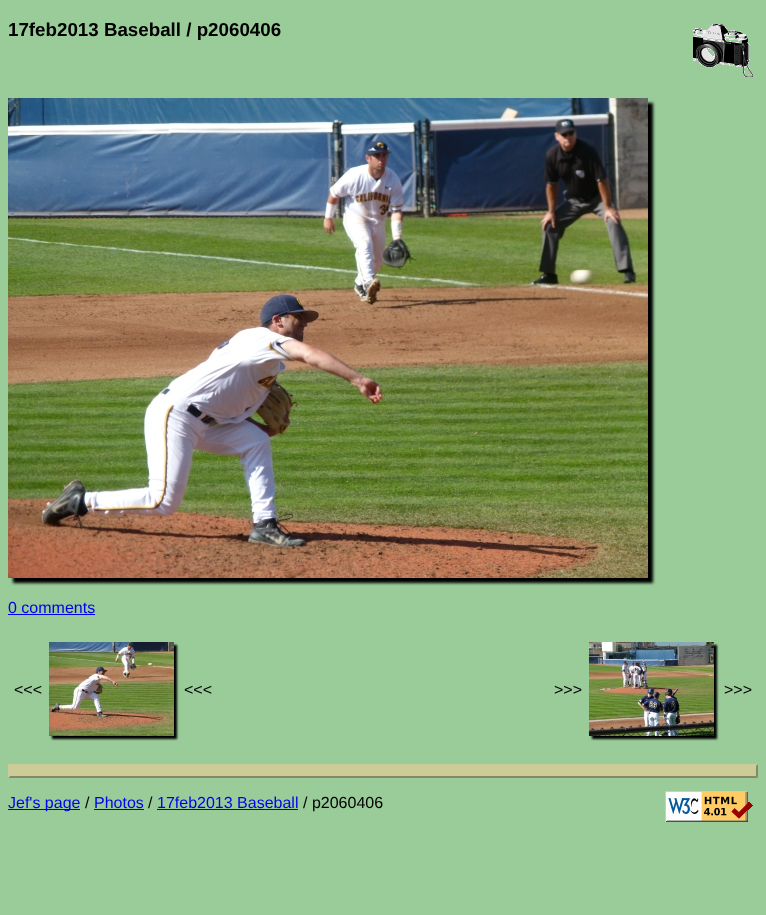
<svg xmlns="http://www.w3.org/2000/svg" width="766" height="915">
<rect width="100%" height="100%" fill="#9c9"/>
<text x="8" y="36" style="font-family:Liberation Sans;font-size:18.75px;font-weight:bold;fill:#000">17feb2013 Baseball / p2060406</text>
<image x="693" y="24" width="60" height="53" href="media/1.png"/>
<rect x="13" y="103" width="640" height="480" fill="#000" filter="blur(1.5px)"/>
<image x="8" y="98" width="640" height="480" href="media/2.png"/>
<text x="8" y="613" style="font-family:Liberation Sans;font-size:16px;fill:#00e">0 comments</text>
<rect x="8" y="614" width="87" height="1" fill="#00e"/>
<text x="14" y="695" style="font-family:Liberation Sans;font-size:16px;fill:#000">&lt;&lt;&lt;</text>
<rect x="52" y="645" width="125" height="94" fill="#000" filter="blur(1px)"/>
<image x="49" y="642" width="125" height="94" href="media/3.png"/>
<text x="184" y="695" style="font-family:Liberation Sans;font-size:16px;fill:#000">&lt;&lt;&lt;</text>
<text x="554" y="695" style="font-family:Liberation Sans;font-size:16px;fill:#000">&gt;&gt;&gt;</text>
<rect x="592" y="645" width="125" height="94" fill="#000" filter="blur(1px)"/>
<image x="589" y="642" width="125" height="94" href="media/4.png"/>
<text x="724" y="695" style="font-family:Liberation Sans;font-size:16px;fill:#000">&gt;&gt;&gt;</text>
<rect x="8" y="764" width="750" height="14" fill="#cc9"/>
<path d="M758 764v14l-2-2v-10z" fill="#886"/>
<path d="M758 778h-750l2-2h746z" fill="#886"/>
<path d="M8 778v-14l2 2v10z" fill="#cc9"/>
<rect x="8" y="809" width="72" height="1" fill="#00e"/>
<text x="8" y="808" style="font-family:Liberation Sans;font-size:16px;fill:#00e">Jef's page</text>
<text x="85" y="808" style="font-family:Liberation Sans;font-size:16px;fill:#000">/</text>
<text x="94" y="808" style="font-family:Liberation Sans;font-size:16px;fill:#00e">Photos</text>
<rect x="94" y="809" width="50" height="1" fill="#00e"/>
<text x="148" y="808" style="font-family:Liberation Sans;font-size:16px;fill:#000">/</text>
<text x="157" y="808" style="font-family:Liberation Sans;font-size:16px;fill:#00e">17feb2013 Baseball</text>
<rect x="157" y="809" width="141" height="1" fill="#00e"/>
<text x="303" y="808" style="font-family:Liberation Sans;font-size:16px;fill:#000">/ p2060406</text>
<image x="665" y="791" width="88" height="31" href="media/5.png"/>
</svg>
